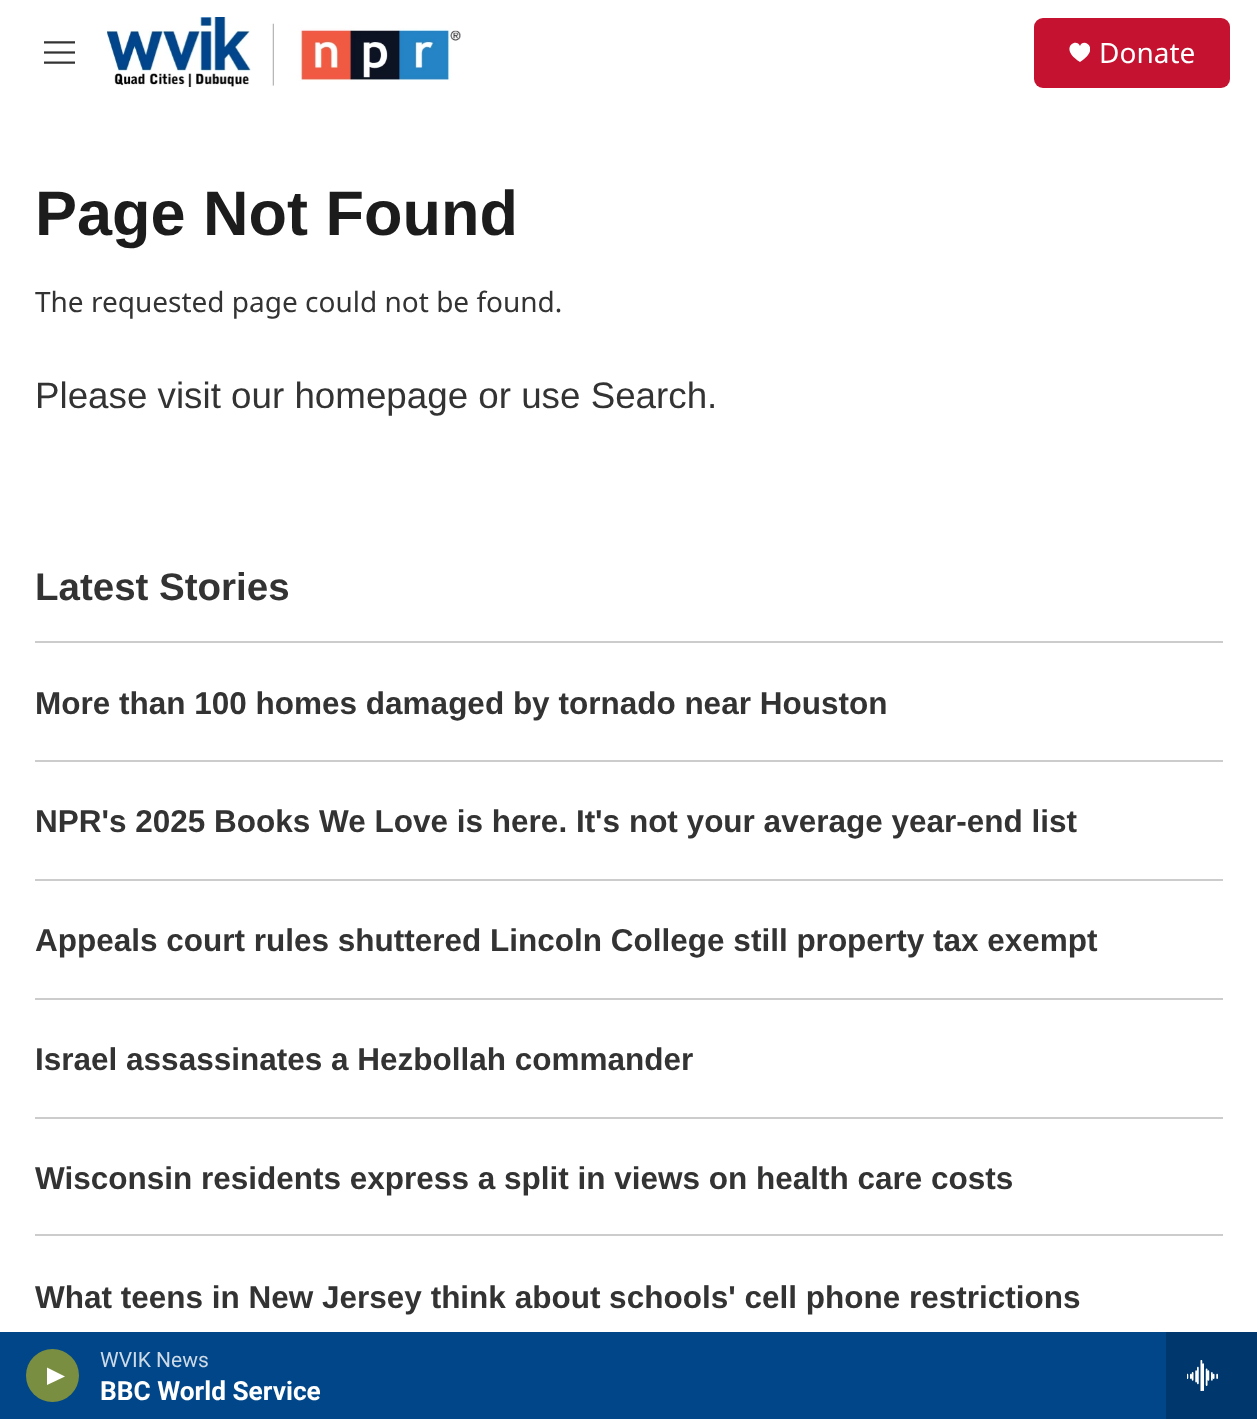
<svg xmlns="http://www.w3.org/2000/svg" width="1257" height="1419">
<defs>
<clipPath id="clip1"><rect x="1069" y="42" width="21" height="21"/></clipPath>
</defs>
<rect width="100%" height="100%" fill="#fff"/>
<image x="44" y="41" width="31" height="23" href="media/1.png"/>
<image x="107" y="17" width="354" height="70" href="media/2.png"/>
<rect x="1034" y="18" width="196" height="70" rx="9" fill="#c41230"/>
<g clip-path="url(#clip1)">
<path d="M1080 46c-3.5-9-22 2.5 0 16c21.5-13.5 3-25 0-16z" fill="#fff"/>
</g>
<text x="1099" y="63" style="font-family:Noto Sans;font-size:28px;fill:#fff">Donate</text>
<rect y="1332" width="1166" height="87" fill="#004688"/>
<circle cx="52.5" cy="1375.5" r="26.5" fill="#7a8e41"/>
<path d="M47 1367.5l18 9l-18 8.5z" fill="#fff"/>
<text x="100" y="1367" style="font-family:Roboto;font-size:21px;fill:#ccdae7">WVIK News</text>
<text x="100" y="1400" style="font-family:Roboto;font-size:26.25px;font-weight:bold;fill:#fff">BBC World Service</text>
<rect x="1166" y="1332" width="91" height="87" fill="#00386d"/>
<image x="1187" y="1360" width="31" height="31" href="media/3.png"/>
<text x="35" y="235" style="font-family:Liberation Sans;font-size:63px;font-weight:bold;fill:#1c1c1c">Page Not Found</text>
<text x="35" y="312" style="font-family:Noto Sans;font-size:28px;fill:#333">The requested page could not be found.</text>
<text x="35" y="408" style="font-family:Liberation Sans;font-size:36.75px;fill:#333">Please visit our homepage or use Search.</text>
<rect x="35" y="641" width="1188" height="2" fill="#ccc"/>
<text x="35" y="600" style="font-family:Liberation Sans;font-size:38.5px;font-weight:bold;fill:#333">Latest Stories</text>
<rect x="35" y="760" width="1188" height="2" fill="#ccc"/>
<text x="35" y="714" style="font-family:Liberation Sans;font-size:31.5px;font-weight:bold;fill:#333">More than 100 homes damaged by tornado near Houston</text>
<rect x="35" y="879" width="1188" height="2" fill="#ccc"/>
<text x="35" y="832" style="font-family:Liberation Sans;font-size:31.5px;font-weight:bold;fill:#333">NPR's 2025 Books We Love is here. It's not your average year-end list</text>
<rect x="35" y="998" width="1188" height="2" fill="#ccc"/>
<text x="35" y="951" style="font-family:Liberation Sans;font-size:31.5px;font-weight:bold;fill:#333">Appeals court rules shuttered Lincoln College still property tax exempt</text>
<rect x="35" y="1117" width="1188" height="2" fill="#ccc"/>
<text x="35" y="1070" style="font-family:Liberation Sans;font-size:31.5px;font-weight:bold;fill:#333">Israel assassinates a Hezbollah commander</text>
<rect x="35" y="1234" width="1188" height="2" fill="#ccc"/>
<text x="35" y="1189" style="font-family:Liberation Sans;font-size:31.5px;font-weight:bold;fill:#333">Wisconsin residents express a split in views on health care costs</text>
<text x="35" y="1308" style="font-family:Liberation Sans;font-size:31.5px;font-weight:bold;fill:#333">What teens in New Jersey think about schools' cell phone restrictions</text>
</svg>
